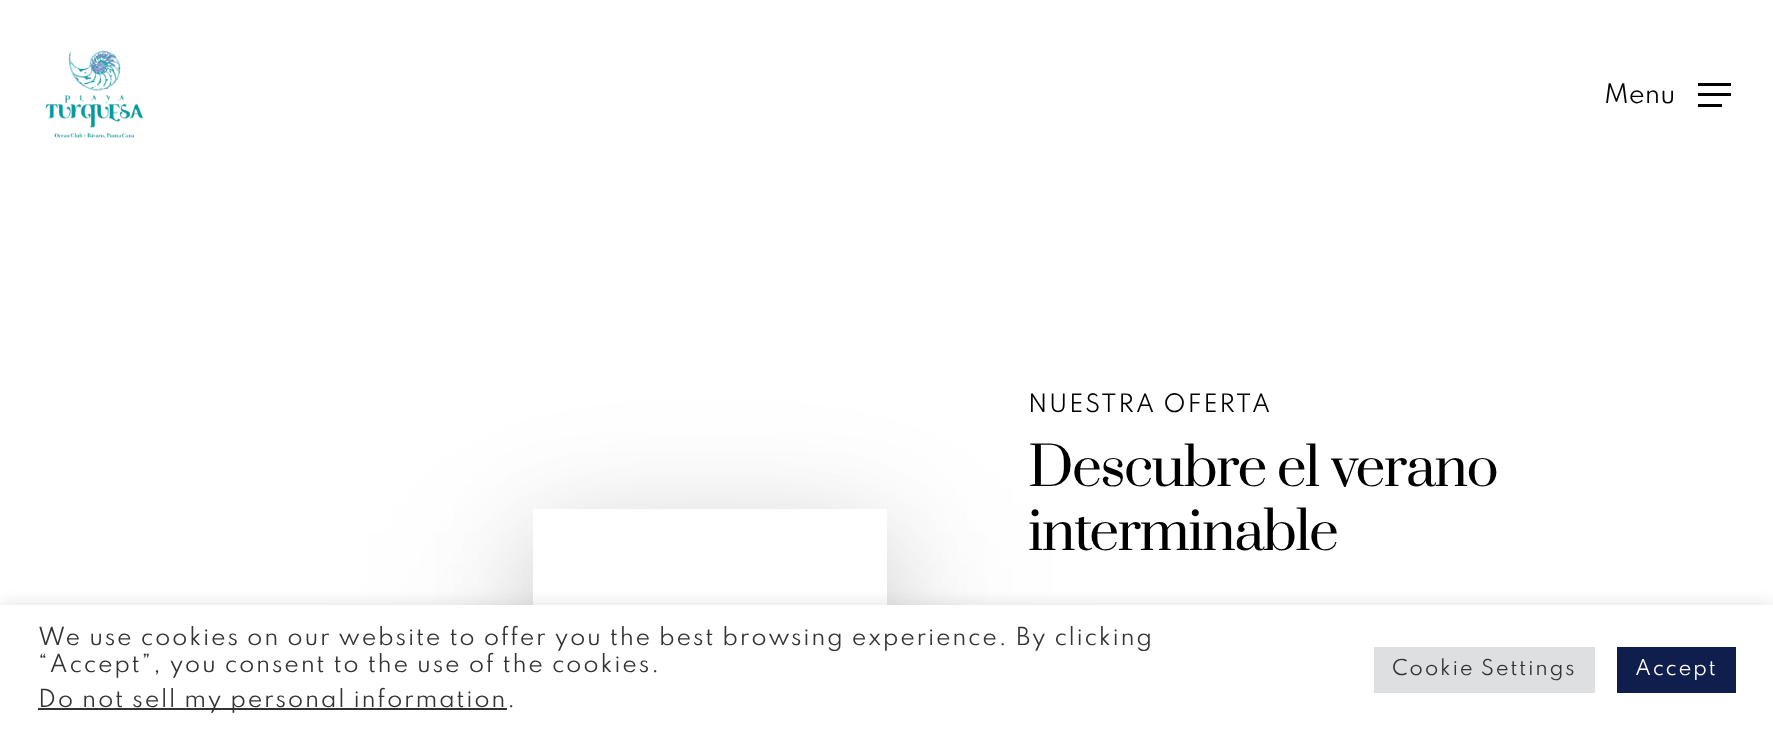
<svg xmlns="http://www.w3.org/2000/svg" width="1773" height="734">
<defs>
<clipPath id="clip1"><path d="M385 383h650v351h-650zm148 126h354v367h-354z" clip-rule="evenodd"/></clipPath>
<clipPath id="clip2"><path d="M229 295h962v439h-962zm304 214h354v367h-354z" clip-rule="evenodd"/></clipPath>
<clipPath id="clip3"><rect x="1331" y="438" width="166" height="63"/></clipPath>
</defs>
<rect width="100%" height="100%" fill="#fff"/>
<image x="45" y="50" width="99" height="89" href="media/1.png"/>
<text x="1604" y="103" style="font-family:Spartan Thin;font-size:24px;fill:#000">Menu</text>
<rect x="1698" y="83" width="33" height="3" fill="#000"/>
<rect x="1698" y="104" width="24" height="3" fill="#000"/>
<rect x="1698" y="93" width="33" height="3" fill="#000"/>
<g clip-path="url(#clip1)">
<rect x="533" y="531" width="354" height="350" fill="#00000024" filter="blur(49px)"/>
</g>
<g clip-path="url(#clip2)">
<rect x="533" y="599" width="354" height="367" fill="#00000024" filter="blur(101px)"/>
</g>
<text x="1028" y="412" style="font-family:Spartan Thin;font-size:22.5px;letter-spacing:1.65px;fill:#000">NUESTRA OFERTA</text>
<text x="1028" y="486" style="font-family:Prata;font-size:53.25px;letter-spacing:-1.6px;fill:#000">Descubre el</text>
<g clip-path="url(#clip3)">
<text x="1330" y="486" style="font-family:Prata;font-size:53.25px;letter-spacing:-1.6px;fill:#000">verano</text>
</g>
<text x="1028" y="550" style="font-family:Prata;font-size:53.25px;letter-spacing:-1.6px;fill:#000">interminable</text>
<rect y="603" width="1773" height="131" fill="#acabab4d" filter="blur(7.5px)"/>
<rect y="605" width="1773" height="129" fill="#fff"/>
<text x="38" y="645" style="font-family:Spartan Thin;font-size:22px;letter-spacing:1.65px;fill:#333">We use cookies on our website to offer you the best browsing experience. By clicking</text>
<text x="38" y="672" style="font-family:Spartan Thin;font-size:22px;letter-spacing:1.65px;fill:#333">“Accept”, you consent to the use of the cookies.</text>
<rect x="38" y="708" width="469" height="2" fill="#333"/>
<text x="38" y="707" style="font-family:Spartan Thin;font-size:22px;letter-spacing:1.65px;fill:#333">Do not sell my personal information.</text>
<rect x="1374" y="647" width="221" height="46" fill="#dedfe0"/>
<text x="1392" y="675" style="font-family:Spartan Thin;font-size:19.5px;letter-spacing:1.65px;fill:#333">Cookie Settings</text>
<rect x="1617" y="647" width="119" height="46" fill="#0f1e4d"/>
<text x="1635" y="675" style="font-family:Spartan Thin;font-size:19.5px;letter-spacing:1.65px;fill:#fff">Accept</text>
</svg>
